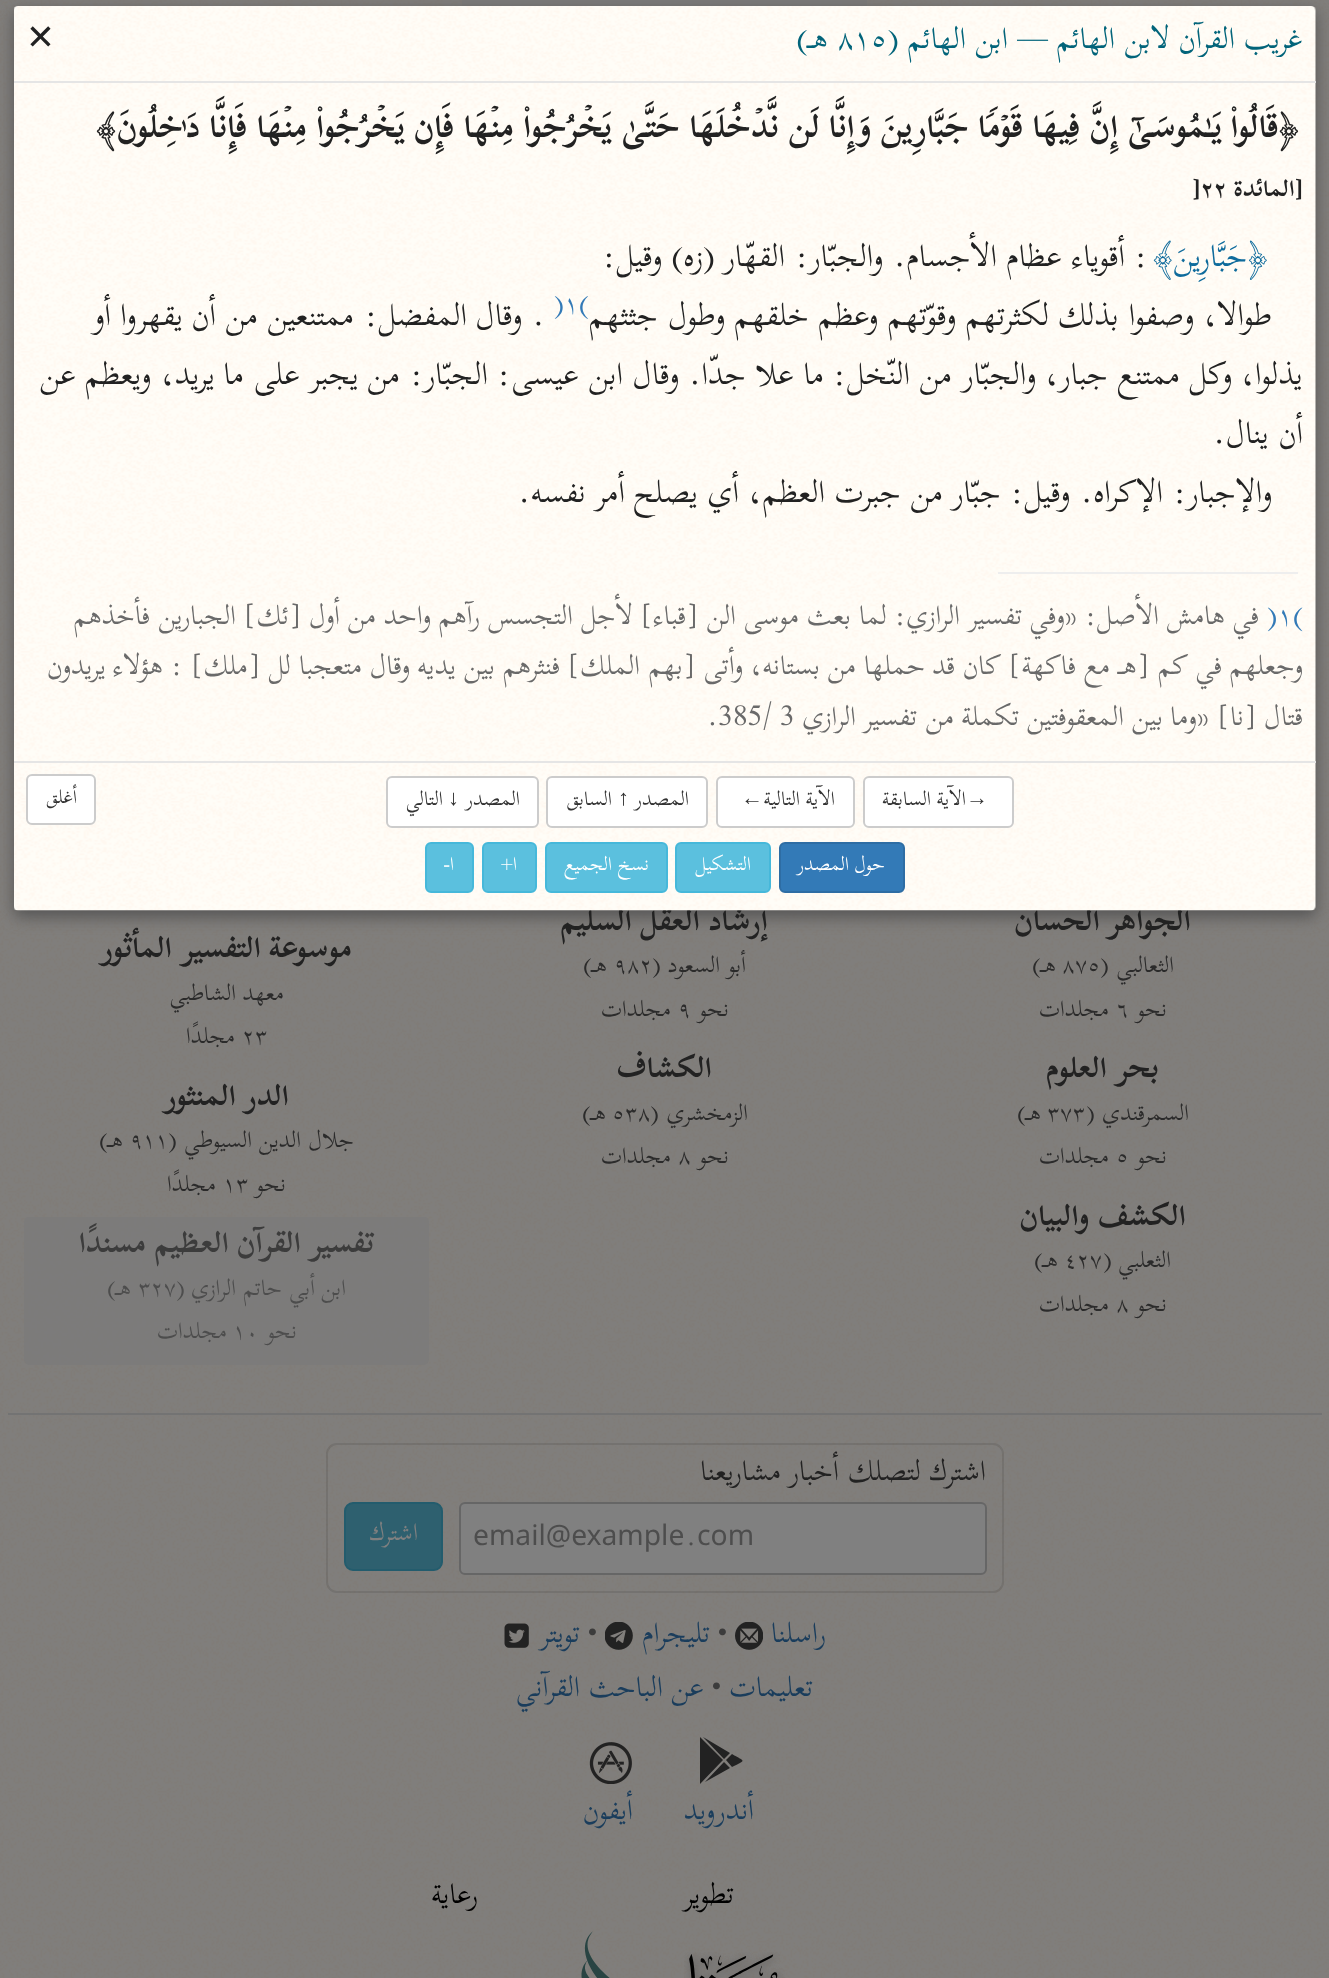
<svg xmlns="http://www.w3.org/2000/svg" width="1329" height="1978">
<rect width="100%" height="100%" fill="#fff"/>
<image x="0" y="0" width="1329" height="1978" href="media/1.png"/>
<rect x="462" width="405" height="6" fill="#7a7a7ab3"/>
<rect x="14" y="11" width="1302" height="906" rx="5" fill="#555" filter="blur(7.5px)"/>
<text x="1191" y="930" style="font-family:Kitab;font-size:31.5px;font-weight:bold;direction:rtl;fill:#222">الجواهر</text>
<text x="1100" y="930" style="font-family:Kitab;font-size:31.5px;font-weight:bold;direction:rtl;fill:#222">الحسان</text>
<text x="768" y="930" style="font-family:Kitab;font-size:31.5px;font-weight:bold;direction:rtl;fill:#222">إرشاد</text>
<text x="700" y="930" style="font-family:Kitab;font-size:31.5px;font-weight:bold;direction:rtl;fill:#222">العقل</text>
<text x="632" y="930" style="font-family:Kitab;font-size:31.5px;font-weight:bold;direction:rtl;fill:#222">السليم</text>
<image x="14" y="6" width="1302" height="905" href="media/2.png"/>
<rect x="14" y="81" width="1302" height="2" fill="#e5e5e5"/>
<text x="1303" y="48" style="font-family:Kitab;font-size:33px;direction:rtl;fill:#02647a">غريب</text>
<text x="1235" y="48" style="font-family:Kitab;font-size:33px;direction:rtl;fill:#02647a">القرآن</text>
<text x="1170" y="48" style="font-family:Kitab;font-size:33px;direction:rtl;fill:#02647a">لابن</text>
<text x="1115" y="48" style="font-family:Kitab;font-size:33px;direction:rtl;fill:#02647a">الهائم</text>
<text x="1048" y="48" style="font-family:Kitab;font-size:33px;direction:rtl;fill:#02647a">—</text>
<text x="1008" y="48" style="font-family:Kitab;font-size:33px;direction:rtl;fill:#02647a">ابن</text>
<text x="966" y="48" style="font-family:Kitab;font-size:33px;direction:rtl;fill:#02647a">الهائم</text>
<text x="899" y="48" style="font-family:Kitab;font-size:33px;direction:rtl;fill:#02647a">(</text>
<text x="837" y="48" style="font-family:Kitab;font-size:33px;fill:#02647a">٨١٥</text>
<text x="828" y="48" style="font-family:Kitab;font-size:33px;direction:rtl;fill:#02647a">هـ)</text>
<text x="26" y="49" style="font-family:DejaVu Sans;font-size:34.5px;fill:#222">✕</text>
<text x="1303" y="137" style="font-family:Kitab;font-size:34.5px;font-weight:bold;direction:rtl;fill:#222">﴿قَالُوا۟</text>
<text x="1222" y="137" style="font-family:Kitab;font-size:34.5px;font-weight:bold;direction:rtl;fill:#222">یَـٰمُوسَىٰۤ</text>
<text x="1118" y="137" style="font-family:Kitab;font-size:34.5px;font-weight:bold;direction:rtl;fill:#222">إِنَّ</text>
<text x="1080" y="137" style="font-family:Kitab;font-size:34.5px;font-weight:bold;direction:rtl;fill:#222">فِیهَا</text>
<text x="1023" y="137" style="font-family:Kitab;font-size:34.5px;font-weight:bold;direction:rtl;fill:#222">قَوۡمࣰا</text>
<text x="969" y="137" style="font-family:Kitab;font-size:34.5px;font-weight:bold;direction:rtl;fill:#222">جَبَّارِینَ</text>
<text x="871" y="137" style="font-family:Kitab;font-size:34.5px;font-weight:bold;direction:rtl;fill:#222">وَإِنَّا</text>
<text x="820" y="137" style="font-family:Kitab;font-size:34.5px;font-weight:bold;direction:rtl;fill:#222">لَن</text>
<text x="779" y="137" style="font-family:Kitab;font-size:34.5px;font-weight:bold;direction:rtl;fill:#222">نَّدۡخُلَهَا</text>
<text x="680" y="137" style="font-family:Kitab;font-size:34.5px;font-weight:bold;direction:rtl;fill:#222">حَتَّىٰ</text>
<text x="612" y="137" style="font-family:Kitab;font-size:34.5px;font-weight:bold;direction:rtl;fill:#222">یَخۡرُجُوا۟</text>
<text x="514" y="137" style="font-family:Kitab;font-size:34.5px;font-weight:bold;direction:rtl;fill:#222">مِنۡهَا</text>
<text x="454" y="137" style="font-family:Kitab;font-size:34.5px;font-weight:bold;direction:rtl;fill:#222">فَإِن</text>
<text x="405" y="137" style="font-family:Kitab;font-size:34.5px;font-weight:bold;direction:rtl;fill:#222">یَخۡرُجُوا۟</text>
<text x="307" y="137" style="font-family:Kitab;font-size:34.5px;font-weight:bold;direction:rtl;fill:#222">مِنۡهَا</text>
<text x="247" y="137" style="font-family:Kitab;font-size:34.5px;font-weight:bold;direction:rtl;fill:#222">فَإِنَّا</text>
<text x="200" y="137" style="font-family:Kitab;font-size:34.5px;font-weight:bold;direction:rtl;fill:#222">دَ ٰخِلُونَ﴾</text>
<text x="1303" y="196" style="font-family:Kitab;font-size:25px;font-weight:bold;direction:rtl;fill:#222">[المائدة</text>
<text x="1192" y="196" style="font-family:Kitab;font-size:25px;font-weight:bold;fill:#222">]٢٢</text>
<text x="1272" y="266" style="font-family:Kitab;font-size:34.5px;direction:rtl;fill:#0f6b9c">﴿جَبَّارِينَ﴾</text>
<text x="1148" y="266" style="font-family:Kitab;font-size:34.5px;direction:rtl;fill:#222">:</text>
<text x="1125" y="266" style="font-family:Kitab;font-size:34.5px;direction:rtl;fill:#222">أقوياء</text>
<text x="1062" y="266" style="font-family:Kitab;font-size:34.5px;direction:rtl;fill:#222">عظام</text>
<text x="997" y="266" style="font-family:Kitab;font-size:34.5px;direction:rtl;fill:#222">الأجسام.</text>
<text x="883" y="266" style="font-family:Kitab;font-size:34.5px;direction:rtl;fill:#222">والجبّار:</text>
<text x="785" y="266" style="font-family:Kitab;font-size:34.5px;direction:rtl;fill:#222">القهّار</text>
<text x="715" y="266" style="font-family:Kitab;font-size:34.5px;direction:rtl;fill:#222">(زه)</text>
<text x="662" y="266" style="font-family:Kitab;font-size:34.5px;direction:rtl;fill:#222">وقيل:</text>
<text x="1272" y="325" style="font-family:Kitab;font-size:34.5px;direction:rtl;fill:#222">طوالا،</text>
<text x="1194" y="325" style="font-family:Kitab;font-size:34.5px;direction:rtl;fill:#222">وصفوا</text>
<text x="1119" y="325" style="font-family:Kitab;font-size:34.5px;direction:rtl;fill:#222">بذلك</text>
<text x="1049" y="325" style="font-family:Kitab;font-size:34.5px;direction:rtl;fill:#222">لكثرتهم</text>
<text x="956" y="325" style="font-family:Kitab;font-size:34.5px;direction:rtl;fill:#222">وقوّتهم</text>
<text x="878" y="325" style="font-family:Kitab;font-size:34.5px;direction:rtl;fill:#222">وعظم</text>
<text x="809" y="325" style="font-family:Kitab;font-size:34.5px;direction:rtl;fill:#222">خلقهم</text>
<text x="725" y="325" style="font-family:Kitab;font-size:34.5px;direction:rtl;fill:#222">وطول</text>
<text x="658" y="325" style="font-family:Kitab;font-size:34.5px;direction:rtl;fill:#222">جثثهم</text>
<text x="554" y="312" style="font-family:Kitab;font-size:29px;fill:#337ab7">)١(</text>
<text x="545" y="325" style="font-family:Kitab;font-size:34.5px;direction:rtl;fill:#222">.</text>
<text x="522" y="325" style="font-family:Kitab;font-size:34.5px;direction:rtl;fill:#222">وقال</text>
<text x="467" y="325" style="font-family:Kitab;font-size:34.5px;direction:rtl;fill:#222">المفضل:</text>
<text x="354" y="325" style="font-family:Kitab;font-size:34.5px;direction:rtl;fill:#222">ممتنعين</text>
<text x="258" y="325" style="font-family:Kitab;font-size:34.5px;direction:rtl;fill:#222">من</text>
<text x="216" y="325" style="font-family:Kitab;font-size:34.5px;direction:rtl;fill:#222">أن</text>
<text x="183" y="325" style="font-family:Kitab;font-size:34.5px;direction:rtl;fill:#222">يقهروا</text>
<text x="111" y="325" style="font-family:Kitab;font-size:34.5px;direction:rtl;fill:#222">أو</text>
<text x="1303" y="384" style="font-family:Kitab;font-size:34.5px;direction:rtl;fill:#222">يذلوا،</text>
<text x="1232" y="384" style="font-family:Kitab;font-size:34.5px;direction:rtl;fill:#222">وكل</text>
<text x="1180" y="384" style="font-family:Kitab;font-size:34.5px;direction:rtl;fill:#222">ممتنع</text>
<text x="1108" y="384" style="font-family:Kitab;font-size:34.5px;direction:rtl;fill:#222">جبار،</text>
<text x="1036" y="384" style="font-family:Kitab;font-size:34.5px;direction:rtl;fill:#222">والجبّار</text>
<text x="952" y="384" style="font-family:Kitab;font-size:34.5px;direction:rtl;fill:#222">من</text>
<text x="910" y="384" style="font-family:Kitab;font-size:34.5px;direction:rtl;fill:#222">النّخل:</text>
<text x="824" y="384" style="font-family:Kitab;font-size:34.5px;direction:rtl;fill:#222">ما</text>
<text x="794" y="384" style="font-family:Kitab;font-size:34.5px;direction:rtl;fill:#222">علا</text>
<text x="746" y="384" style="font-family:Kitab;font-size:34.5px;direction:rtl;fill:#222">جدّا.</text>
<text x="679" y="384" style="font-family:Kitab;font-size:34.5px;direction:rtl;fill:#222">وقال</text>
<text x="623" y="384" style="font-family:Kitab;font-size:34.5px;direction:rtl;fill:#222">ابن</text>
<text x="579" y="384" style="font-family:Kitab;font-size:34.5px;direction:rtl;fill:#222">عيسى:</text>
<text x="488" y="384" style="font-family:Kitab;font-size:34.5px;direction:rtl;fill:#222">الجبّار:</text>
<text x="400" y="384" style="font-family:Kitab;font-size:34.5px;direction:rtl;fill:#222">من</text>
<text x="359" y="384" style="font-family:Kitab;font-size:34.5px;direction:rtl;fill:#222">يجبر</text>
<text x="300" y="384" style="font-family:Kitab;font-size:34.5px;direction:rtl;fill:#222">على</text>
<text x="244" y="384" style="font-family:Kitab;font-size:34.5px;direction:rtl;fill:#222">ما</text>
<text x="215" y="384" style="font-family:Kitab;font-size:34.5px;direction:rtl;fill:#222">يريد،</text>
<text x="151" y="384" style="font-family:Kitab;font-size:34.5px;direction:rtl;fill:#222">ويعظم</text>
<text x="76" y="384" style="font-family:Kitab;font-size:34.5px;direction:rtl;fill:#222">عن</text>
<text x="1303" y="443" style="font-family:Kitab;font-size:34.5px;direction:rtl;fill:#222">أن</text>
<text x="1269" y="443" style="font-family:Kitab;font-size:34.5px;direction:rtl;fill:#222">ينال.</text>
<text x="1272" y="502" style="font-family:Kitab;font-size:34.5px;direction:rtl;fill:#222">والإجبار:</text>
<text x="1163" y="502" style="font-family:Kitab;font-size:34.5px;direction:rtl;fill:#222">الإكراه.</text>
<text x="1070" y="502" style="font-family:Kitab;font-size:34.5px;direction:rtl;fill:#222">وقيل:</text>
<text x="1001" y="502" style="font-family:Kitab;font-size:34.5px;direction:rtl;fill:#222">جبّار</text>
<text x="943" y="502" style="font-family:Kitab;font-size:34.5px;direction:rtl;fill:#222">من</text>
<text x="901" y="502" style="font-family:Kitab;font-size:34.5px;direction:rtl;fill:#222">جبرت</text>
<text x="825" y="502" style="font-family:Kitab;font-size:34.5px;direction:rtl;fill:#222">العظم،</text>
<text x="739" y="502" style="font-family:Kitab;font-size:34.5px;direction:rtl;fill:#222">أي</text>
<text x="698" y="502" style="font-family:Kitab;font-size:34.5px;direction:rtl;fill:#222">يصلح</text>
<text x="625" y="502" style="font-family:Kitab;font-size:34.5px;direction:rtl;fill:#222">أمر</text>
<text x="586" y="502" style="font-family:Kitab;font-size:34.5px;direction:rtl;fill:#222">نفسه.</text>
<rect x="998" y="572" width="300" height="2" fill="#eee"/>
<text x="1267" y="624" style="font-family:Kitab;font-size:30px;fill:#337ab7">)١(</text>
<text x="1259" y="624" style="font-family:Kitab;font-size:30px;direction:rtl;fill:#6a6a6a">في</text>
<text x="1225" y="624" style="font-family:Kitab;font-size:30px;direction:rtl;fill:#6a6a6a">هامش</text>
<text x="1159" y="624" style="font-family:Kitab;font-size:30px;direction:rtl;fill:#6a6a6a">الأصل:</text>
<text x="1077" y="624" style="font-family:Kitab;font-size:30px;direction:rtl;fill:#6a6a6a">«وفي</text>
<text x="1022" y="624" style="font-family:Kitab;font-size:30px;direction:rtl;fill:#6a6a6a">تفسير</text>
<text x="960" y="624" style="font-family:Kitab;font-size:30px;direction:rtl;fill:#6a6a6a">الرازي:</text>
<text x="887" y="624" style="font-family:Kitab;font-size:30px;direction:rtl;fill:#6a6a6a">لما</text>
<text x="851" y="624" style="font-family:Kitab;font-size:30px;direction:rtl;fill:#6a6a6a">بعث</text>
<text x="799" y="624" style="font-family:Kitab;font-size:30px;direction:rtl;fill:#6a6a6a">موسى</text>
<text x="736" y="624" style="font-family:Kitab;font-size:30px;direction:rtl;fill:#6a6a6a">الن</text>
<text x="699" y="624" style="font-family:Kitab;font-size:30px;direction:rtl;fill:#6a6a6a">[قباء]</text>
<text x="633" y="624" style="font-family:Kitab;font-size:30px;direction:rtl;fill:#6a6a6a">لأجل</text>
<text x="573" y="624" style="font-family:Kitab;font-size:30px;direction:rtl;fill:#6a6a6a">التجسس</text>
<text x="480" y="624" style="font-family:Kitab;font-size:30px;direction:rtl;fill:#6a6a6a">رآهم</text>
<text x="431" y="624" style="font-family:Kitab;font-size:30px;direction:rtl;fill:#6a6a6a">واحد</text>
<text x="376" y="624" style="font-family:Kitab;font-size:30px;direction:rtl;fill:#6a6a6a">من</text>
<text x="340" y="624" style="font-family:Kitab;font-size:30px;direction:rtl;fill:#6a6a6a">أول</text>
<text x="302" y="624" style="font-family:Kitab;font-size:30px;direction:rtl;fill:#6a6a6a">[ئك]</text>
<text x="236" y="624" style="font-family:Kitab;font-size:30px;direction:rtl;fill:#6a6a6a">الجبارين</text>
<text x="150" y="624" style="font-family:Kitab;font-size:30px;direction:rtl;fill:#6a6a6a">فأخذهم</text>
<text x="1303" y="674" style="font-family:Kitab;font-size:30px;direction:rtl;fill:#6a6a6a">وجعلهم</text>
<text x="1222" y="674" style="font-family:Kitab;font-size:30px;direction:rtl;fill:#6a6a6a">في</text>
<text x="1188" y="674" style="font-family:Kitab;font-size:30px;direction:rtl;fill:#6a6a6a">كم</text>
<text x="1150" y="674" style="font-family:Kitab;font-size:30px;direction:rtl;fill:#6a6a6a">[هـ</text>
<text x="1110" y="674" style="font-family:Kitab;font-size:30px;direction:rtl;fill:#6a6a6a">مع</text>
<text x="1076" y="674" style="font-family:Kitab;font-size:30px;direction:rtl;fill:#6a6a6a">فاكهة]</text>
<text x="1001" y="674" style="font-family:Kitab;font-size:30px;direction:rtl;fill:#6a6a6a">كان</text>
<text x="955" y="674" style="font-family:Kitab;font-size:30px;direction:rtl;fill:#6a6a6a">قد</text>
<text x="925" y="674" style="font-family:Kitab;font-size:30px;direction:rtl;fill:#6a6a6a">حملها</text>
<text x="856" y="674" style="font-family:Kitab;font-size:30px;direction:rtl;fill:#6a6a6a">من</text>
<text x="820" y="674" style="font-family:Kitab;font-size:30px;direction:rtl;fill:#6a6a6a">بستانه،</text>
<text x="743" y="674" style="font-family:Kitab;font-size:30px;direction:rtl;fill:#6a6a6a">وأتى</text>
<text x="696" y="674" style="font-family:Kitab;font-size:30px;direction:rtl;fill:#6a6a6a">[بهم</text>
<text x="640" y="674" style="font-family:Kitab;font-size:30px;direction:rtl;fill:#6a6a6a">الملك]</text>
<text x="560" y="674" style="font-family:Kitab;font-size:30px;direction:rtl;fill:#6a6a6a">فنثرهم</text>
<text x="495" y="674" style="font-family:Kitab;font-size:30px;direction:rtl;fill:#6a6a6a">بين</text>
<text x="456" y="674" style="font-family:Kitab;font-size:30px;direction:rtl;fill:#6a6a6a">يديه</text>
<text x="410" y="674" style="font-family:Kitab;font-size:30px;direction:rtl;fill:#6a6a6a">وقال</text>
<text x="362" y="674" style="font-family:Kitab;font-size:30px;direction:rtl;fill:#6a6a6a">متعجبا</text>
<text x="291" y="674" style="font-family:Kitab;font-size:30px;direction:rtl;fill:#6a6a6a">لل</text>
<text x="261" y="674" style="font-family:Kitab;font-size:30px;direction:rtl;fill:#6a6a6a">[ملك]</text>
<text x="183" y="674" style="font-family:Kitab;font-size:30px;direction:rtl;fill:#6a6a6a">:</text>
<text x="163" y="674" style="font-family:Kitab;font-size:30px;direction:rtl;fill:#6a6a6a">هؤلاء</text>
<text x="106" y="674" style="font-family:Kitab;font-size:30px;direction:rtl;fill:#6a6a6a">يريدون</text>
<text x="1303" y="725" style="font-family:Kitab;font-size:30px;direction:rtl;fill:#6a6a6a">قتال</text>
<text x="1257" y="725" style="font-family:Kitab;font-size:30px;direction:rtl;fill:#6a6a6a">[نا]</text>
<text x="1209" y="725" style="font-family:Kitab;font-size:30px;direction:rtl;fill:#6a6a6a">«وما</text>
<text x="1163" y="725" style="font-family:Kitab;font-size:30px;direction:rtl;fill:#6a6a6a">بين</text>
<text x="1124" y="725" style="font-family:Kitab;font-size:30px;direction:rtl;fill:#6a6a6a">المعقوفتين</text>
<text x="1019" y="725" style="font-family:Kitab;font-size:30px;direction:rtl;fill:#6a6a6a">تكملة</text>
<text x="954" y="725" style="font-family:Kitab;font-size:30px;direction:rtl;fill:#6a6a6a">من</text>
<text x="917" y="725" style="font-family:Kitab;font-size:30px;direction:rtl;fill:#6a6a6a">تفسير</text>
<text x="856" y="725" style="font-family:Kitab;font-size:30px;direction:rtl;fill:#6a6a6a">الرازي</text>
<text x="780" y="725" style="font-family:Kitab;font-size:30px;fill:#6a6a6a">3</text>
<text x="706" y="725" style="font-family:Kitab;font-size:30px;fill:#6a6a6a">.385/</text>
<rect x="14" y="761" width="1302" height="2" fill="#e5e5e5"/>
<rect x="864" y="777" width="149" height="50" rx="5" fill="#fff" stroke="#ccc" stroke-width="2"/>
<text x="966" y="805" style="font-family:Liberation Serif;font-size:22px;fill:#333">→</text>
<text x="966" y="805" style="font-family:Kitab;font-size:22px;direction:rtl;fill:#333">الآية</text>
<text x="931" y="805" style="font-family:Kitab;font-size:22px;direction:rtl;fill:#333">السابقة</text>
<rect x="717" y="777" width="137" height="50" rx="5" fill="#fff" stroke="#ccc" stroke-width="2"/>
<text x="835" y="805" style="font-family:Kitab;font-size:22px;direction:rtl;fill:#333">الآية</text>
<text x="800" y="805" style="font-family:Kitab;font-size:22px;direction:rtl;fill:#333">التالية</text>
<text x="741" y="805" style="font-family:Liberation Serif;font-size:22px;fill:#333">←</text>
<rect x="547" y="777" width="160" height="50" rx="5" fill="#fff" stroke="#ccc" stroke-width="2"/>
<text x="689" y="805" style="font-family:Kitab;font-size:22px;direction:rtl;fill:#333">المصدر</text>
<text x="618" y="805" style="font-family:Liberation Serif;font-size:22px;fill:#333">↑</text>
<text x="612" y="805" style="font-family:Kitab;font-size:22px;direction:rtl;fill:#333">السابق</text>
<rect x="387" y="777" width="151" height="50" rx="5" fill="#fff" stroke="#ccc" stroke-width="2"/>
<text x="520" y="805" style="font-family:Kitab;font-size:22px;direction:rtl;fill:#333">المصدر</text>
<text x="448" y="805" style="font-family:Liberation Serif;font-size:22px;fill:#333">↓</text>
<text x="443" y="805" style="font-family:Kitab;font-size:22px;direction:rtl;fill:#333">التالي</text>
<rect x="27" y="775" width="68" height="49" rx="5" fill="#fff" stroke="#ccc" stroke-width="2"/>
<text x="77" y="803" style="font-family:Kitab;font-size:21px;direction:rtl;fill:#333">أغلق</text>
<rect x="780" y="843" width="124" height="49" rx="5" fill="#337ab7" stroke="#2e6da4" stroke-width="2"/>
<text x="885" y="870" style="font-family:Kitab;font-size:21px;direction:rtl;fill:#fff">حول</text>
<text x="849" y="870" style="font-family:Kitab;font-size:21px;direction:rtl;fill:#fff">المصدر</text>
<rect x="676" y="843" width="94" height="49" rx="5" fill="#5bc0de" stroke="#46b8da" stroke-width="2"/>
<text x="751" y="870" style="font-family:Kitab;font-size:21px;direction:rtl;fill:#fff">التشكيل</text>
<rect x="546" y="843" width="121" height="49" rx="5" fill="#5bc0de" stroke="#46b8da" stroke-width="2"/>
<text x="649" y="870" style="font-family:Kitab;font-size:21px;direction:rtl;fill:#fff">نسخ</text>
<text x="612" y="870" style="font-family:Kitab;font-size:21px;direction:rtl;fill:#fff">الجميع</text>
<rect x="483" y="843" width="53" height="49" rx="5" fill="#5bc0de" stroke="#46b8da" stroke-width="2"/>
<text x="517" y="870" style="font-family:Kitab;font-size:21px;direction:rtl;fill:#fff">ا+</text>
<rect x="426" y="843" width="47" height="49" rx="5" fill="#5bc0de" stroke="#46b8da" stroke-width="2"/>
<text x="454" y="870" style="font-family:Kitab;font-size:21px;direction:rtl;fill:#fff">ا-</text>
<text x="1174" y="972" style="font-family:Kitab;font-size:25px;direction:rtl;fill:#2b2b2b">الثعالبي</text>
<text x="1109" y="972" style="font-family:Kitab;font-size:25px;direction:rtl;fill:#2b2b2b">(</text>
<text x="1062" y="972" style="font-family:Kitab;font-size:25px;fill:#2b2b2b">٨٧٥</text>
<text x="1056" y="972" style="font-family:Kitab;font-size:25px;direction:rtl;fill:#2b2b2b">هـ)</text>
<text x="1167" y="1016" style="font-family:Kitab;font-size:25px;direction:rtl;fill:#2b2b2b">نحو</text>
<text x="1116" y="1016" style="font-family:Kitab;font-size:25px;fill:#2b2b2b">٦</text>
<text x="1109" y="1016" style="font-family:Kitab;font-size:25px;direction:rtl;fill:#2b2b2b">مجلدات</text>
<text x="1159" y="1077" style="font-family:Kitab;font-size:31.5px;font-weight:bold;direction:rtl;fill:#222">بحر</text>
<text x="1107" y="1077" style="font-family:Kitab;font-size:31.5px;font-weight:bold;direction:rtl;fill:#222">العلوم</text>
<text x="1189" y="1120" style="font-family:Kitab;font-size:25px;direction:rtl;fill:#2b2b2b">السمرقندي</text>
<text x="1095" y="1120" style="font-family:Kitab;font-size:25px;direction:rtl;fill:#2b2b2b">(</text>
<text x="1047" y="1120" style="font-family:Kitab;font-size:25px;fill:#2b2b2b">٣٧٣</text>
<text x="1041" y="1120" style="font-family:Kitab;font-size:25px;direction:rtl;fill:#2b2b2b">هـ)</text>
<text x="1167" y="1163" style="font-family:Kitab;font-size:25px;direction:rtl;fill:#2b2b2b">نحو</text>
<text x="1116" y="1163" style="font-family:Kitab;font-size:25px;fill:#2b2b2b">٥</text>
<text x="1109" y="1163" style="font-family:Kitab;font-size:25px;direction:rtl;fill:#2b2b2b">مجلدات</text>
<text x="1186" y="1225" style="font-family:Kitab;font-size:31.5px;font-weight:bold;direction:rtl;fill:#222">الكشف</text>
<text x="1089" y="1225" style="font-family:Kitab;font-size:31.5px;font-weight:bold;direction:rtl;fill:#222">والبيان</text>
<text x="1171" y="1267" style="font-family:Kitab;font-size:25px;direction:rtl;fill:#2b2b2b">الثعلبي</text>
<text x="1112" y="1267" style="font-family:Kitab;font-size:25px;direction:rtl;fill:#2b2b2b">(</text>
<text x="1064" y="1267" style="font-family:Kitab;font-size:25px;fill:#2b2b2b">٤٢٧</text>
<text x="1058" y="1267" style="font-family:Kitab;font-size:25px;direction:rtl;fill:#2b2b2b">هـ)</text>
<text x="1167" y="1311" style="font-family:Kitab;font-size:25px;direction:rtl;fill:#2b2b2b">نحو</text>
<text x="1116" y="1311" style="font-family:Kitab;font-size:25px;fill:#2b2b2b">٨</text>
<text x="1109" y="1311" style="font-family:Kitab;font-size:25px;direction:rtl;fill:#2b2b2b">مجلدات</text>
<text x="746" y="972" style="font-family:Kitab;font-size:25px;direction:rtl;fill:#2b2b2b">أبو</text>
<text x="720" y="972" style="font-family:Kitab;font-size:25px;direction:rtl;fill:#2b2b2b">السعود</text>
<text x="661" y="972" style="font-family:Kitab;font-size:25px;direction:rtl;fill:#2b2b2b">(</text>
<text x="614" y="972" style="font-family:Kitab;font-size:25px;fill:#2b2b2b">٩٨٢</text>
<text x="607" y="972" style="font-family:Kitab;font-size:25px;direction:rtl;fill:#2b2b2b">هـ)</text>
<text x="729" y="1016" style="font-family:Kitab;font-size:25px;direction:rtl;fill:#2b2b2b">نحو</text>
<text x="678" y="1016" style="font-family:Kitab;font-size:25px;fill:#2b2b2b">٩</text>
<text x="671" y="1016" style="font-family:Kitab;font-size:25px;direction:rtl;fill:#2b2b2b">مجلدات</text>
<text x="712" y="1077" style="font-family:Kitab;font-size:31.5px;font-weight:bold;direction:rtl;fill:#222">الكشاف</text>
<text x="748" y="1120" style="font-family:Kitab;font-size:25px;direction:rtl;fill:#2b2b2b">الزمخشري</text>
<text x="659" y="1120" style="font-family:Kitab;font-size:25px;direction:rtl;fill:#2b2b2b">(</text>
<text x="612" y="1120" style="font-family:Kitab;font-size:25px;fill:#2b2b2b">٥٣٨</text>
<text x="606" y="1120" style="font-family:Kitab;font-size:25px;direction:rtl;fill:#2b2b2b">هـ)</text>
<text x="729" y="1163" style="font-family:Kitab;font-size:25px;direction:rtl;fill:#2b2b2b">نحو</text>
<text x="678" y="1163" style="font-family:Kitab;font-size:25px;fill:#2b2b2b">٨</text>
<text x="671" y="1163" style="font-family:Kitab;font-size:25px;direction:rtl;fill:#2b2b2b">مجلدات</text>
<text x="352" y="957" style="font-family:Kitab;font-size:31.5px;font-weight:bold;direction:rtl;fill:#222">موسوعة</text>
<text x="261" y="957" style="font-family:Kitab;font-size:31.5px;font-weight:bold;direction:rtl;fill:#222">التفسير</text>
<text x="172" y="957" style="font-family:Kitab;font-size:31.5px;font-weight:bold;direction:rtl;fill:#222">المأثور</text>
<text x="284" y="1000" style="font-family:Kitab;font-size:25px;direction:rtl;fill:#2b2b2b">معهد</text>
<text x="236" y="1000" style="font-family:Kitab;font-size:25px;direction:rtl;fill:#2b2b2b">الشاطبي</text>
<text x="242" y="1043" style="font-family:Kitab;font-size:25px;fill:#2b2b2b">٢٣</text>
<text x="235" y="1043" style="font-family:Kitab;font-size:25px;direction:rtl;fill:#2b2b2b">مجلدًا</text>
<text x="289" y="1105" style="font-family:Kitab;font-size:31.5px;font-weight:bold;direction:rtl;fill:#222">الدر</text>
<text x="236" y="1105" style="font-family:Kitab;font-size:31.5px;font-weight:bold;direction:rtl;fill:#222">المنثور</text>
<text x="354" y="1147" style="font-family:Kitab;font-size:25px;direction:rtl;fill:#2b2b2b">جلال</text>
<text x="301" y="1147" style="font-family:Kitab;font-size:25px;direction:rtl;fill:#2b2b2b">الدين</text>
<text x="252" y="1147" style="font-family:Kitab;font-size:25px;direction:rtl;fill:#2b2b2b">السيوطي</text>
<text x="177" y="1147" style="font-family:Kitab;font-size:25px;direction:rtl;fill:#2b2b2b">(</text>
<text x="130" y="1147" style="font-family:Kitab;font-size:25px;fill:#2b2b2b">٩١١</text>
<text x="123" y="1147" style="font-family:Kitab;font-size:25px;direction:rtl;fill:#2b2b2b">هـ)</text>
<text x="286" y="1191" style="font-family:Kitab;font-size:25px;direction:rtl;fill:#2b2b2b">نحو</text>
<text x="223" y="1191" style="font-family:Kitab;font-size:25px;fill:#2b2b2b">١٣</text>
<text x="216" y="1191" style="font-family:Kitab;font-size:25px;direction:rtl;fill:#2b2b2b">مجلدًا</text>
<path d="M29 1217h395c3 0 5 2 5 5v137c0 3.5-2.5 6-6 6h-393c-3.5 0-6-2.5-6-6v-137c0-3 2-5 5-5z" fill="#7a7a7ab3"/>
<text x="374" y="1252" style="font-family:Kitab;font-size:31.5px;font-weight:bold;direction:rtl;fill:#3c3c3c">تفسير</text>
<text x="301" y="1252" style="font-family:Kitab;font-size:31.5px;font-weight:bold;direction:rtl;fill:#3c3c3c">القرآن</text>
<text x="229" y="1252" style="font-family:Kitab;font-size:31.5px;font-weight:bold;direction:rtl;fill:#3c3c3c">العظيم</text>
<text x="146" y="1252" style="font-family:Kitab;font-size:31.5px;font-weight:bold;direction:rtl;fill:#3c3c3c">مسندًا</text>
<text x="346" y="1295" style="font-family:Kitab;font-size:25px;direction:rtl;fill:#4d4d4d">ابن</text>
<text x="315" y="1295" style="font-family:Kitab;font-size:25px;direction:rtl;fill:#4d4d4d">أبي</text>
<text x="282" y="1295" style="font-family:Kitab;font-size:25px;direction:rtl;fill:#4d4d4d">حاتم</text>
<text x="236" y="1295" style="font-family:Kitab;font-size:25px;direction:rtl;fill:#4d4d4d">الرازي</text>
<text x="185" y="1295" style="font-family:Kitab;font-size:25px;direction:rtl;fill:#4d4d4d">(</text>
<text x="138" y="1295" style="font-family:Kitab;font-size:25px;fill:#4d4d4d">٣٢٧</text>
<text x="131" y="1295" style="font-family:Kitab;font-size:25px;direction:rtl;fill:#4d4d4d">هـ)</text>
<text x="297" y="1338" style="font-family:Kitab;font-size:25px;direction:rtl;fill:#4d4d4d">نحو</text>
<text x="233" y="1338" style="font-family:Kitab;font-size:25px;fill:#4d4d4d">١٠</text>
<text x="227" y="1338" style="font-family:Kitab;font-size:25px;direction:rtl;fill:#4d4d4d">مجلدات</text>
<rect x="8" y="1413" width="1314" height="2" fill="#737373"/>
<rect x="327" y="1444" width="676" height="148" rx="10" fill="none" stroke="#0505051a" stroke-width="2"/>
<text x="986" y="1480" style="font-family:Kitab;font-size:31.5px;direction:rtl;fill:#222">اشترك</text>
<text x="921" y="1480" style="font-family:Kitab;font-size:31.5px;direction:rtl;fill:#222">لتصلك</text>
<text x="839" y="1480" style="font-family:Kitab;font-size:31.5px;direction:rtl;fill:#222">أخبار</text>
<text x="781" y="1480" style="font-family:Kitab;font-size:31.5px;direction:rtl;fill:#222">مشاريعنا</text>
<rect x="460" y="1503" width="526" height="71" rx="5" fill="#808080" stroke="#666" stroke-width="2"/>
<text x="697" y="1545" style="font-family:Noto Sans;font-size:28.25px;fill:#4d4d4d">com</text>
<text x="685" y="1545" style="font-family:Kitab;font-size:28.25px;fill:#4d4d4d">.</text>
<text x="473" y="1545" style="font-family:Noto Sans;font-size:28.25px;fill:#4d4d4d">email@example</text>
<rect x="345" y="1503" width="97" height="67" rx="8" fill="#2e606f" stroke="#235c6d" stroke-width="2"/>
<text x="418" y="1540" style="font-family:Kitab;font-size:27px;direction:rtl;fill:#808080">اشترك</text>
<text x="826" y="1642" style="font-family:Kitab;font-size:31.5px;direction:rtl;fill:#1a3d5c">راسلنا</text>
<image x="735" y="1622" width="28" height="28" href="media/3.png"/>
<text x="718" y="1642" style="font-family:Kitab;font-size:31.5px;fill:#3c3c3c">•</text>
<text x="710" y="1642" style="font-family:Kitab;font-size:31.5px;direction:rtl;fill:#1a3d5c">تليجرام</text>
<image x="605" y="1622" width="28" height="28" href="media/4.png"/>
<text x="588" y="1642" style="font-family:Kitab;font-size:31.5px;fill:#3c3c3c">•</text>
<text x="580" y="1642" style="font-family:Kitab;font-size:31.5px;direction:rtl;fill:#1a3d5c">تويتر</text>
<image x="504" y="1623" width="25" height="25" href="media/5.png"/>
<text x="813" y="1696" style="font-family:Kitab;font-size:31.5px;direction:rtl;fill:#1a3d5c">تعليمات</text>
<text x="712" y="1696" style="font-family:Kitab;font-size:31.5px;fill:#3c3c3c">•</text>
<text x="704" y="1696" style="font-family:Kitab;font-size:31.5px;direction:rtl;fill:#1a3d5c">عن</text>
<text x="663" y="1696" style="font-family:Kitab;font-size:31.5px;direction:rtl;fill:#1a3d5c">الباحث</text>
<text x="580" y="1696" style="font-family:Kitab;font-size:31.5px;direction:rtl;fill:#1a3d5c">القرآني</text>
<path d="M700 1737v47l23-24zm24 25l6 6l-25 14zm2-2l6 7c15-8 13-5 0-13zm-2-1l6-6l-27-16z" fill="#222"/>
<text x="754" y="1819" style="font-family:Kitab;font-size:31.5px;direction:rtl;fill:#1a3d5c">أندرويد</text>
<image x="589" y="1742" width="43" height="42" href="media/6.png"/>
<text x="633" y="1819" style="font-family:Kitab;font-size:31.5px;direction:rtl;fill:#1a3d5c">أيفون</text>
<text x="734" y="1903" style="font-family:Kitab;font-size:31.5px;direction:rtl;fill:#000">تطوير</text>
<image x="684" y="1952" width="101" height="26" href="media/7.png"/>
<text x="478" y="1903" style="font-family:Kitab;font-size:31.5px;direction:rtl;fill:#000">رعاية</text>
<image x="581" y="1931" width="29" height="47" href="media/8.png"/>
</svg>
